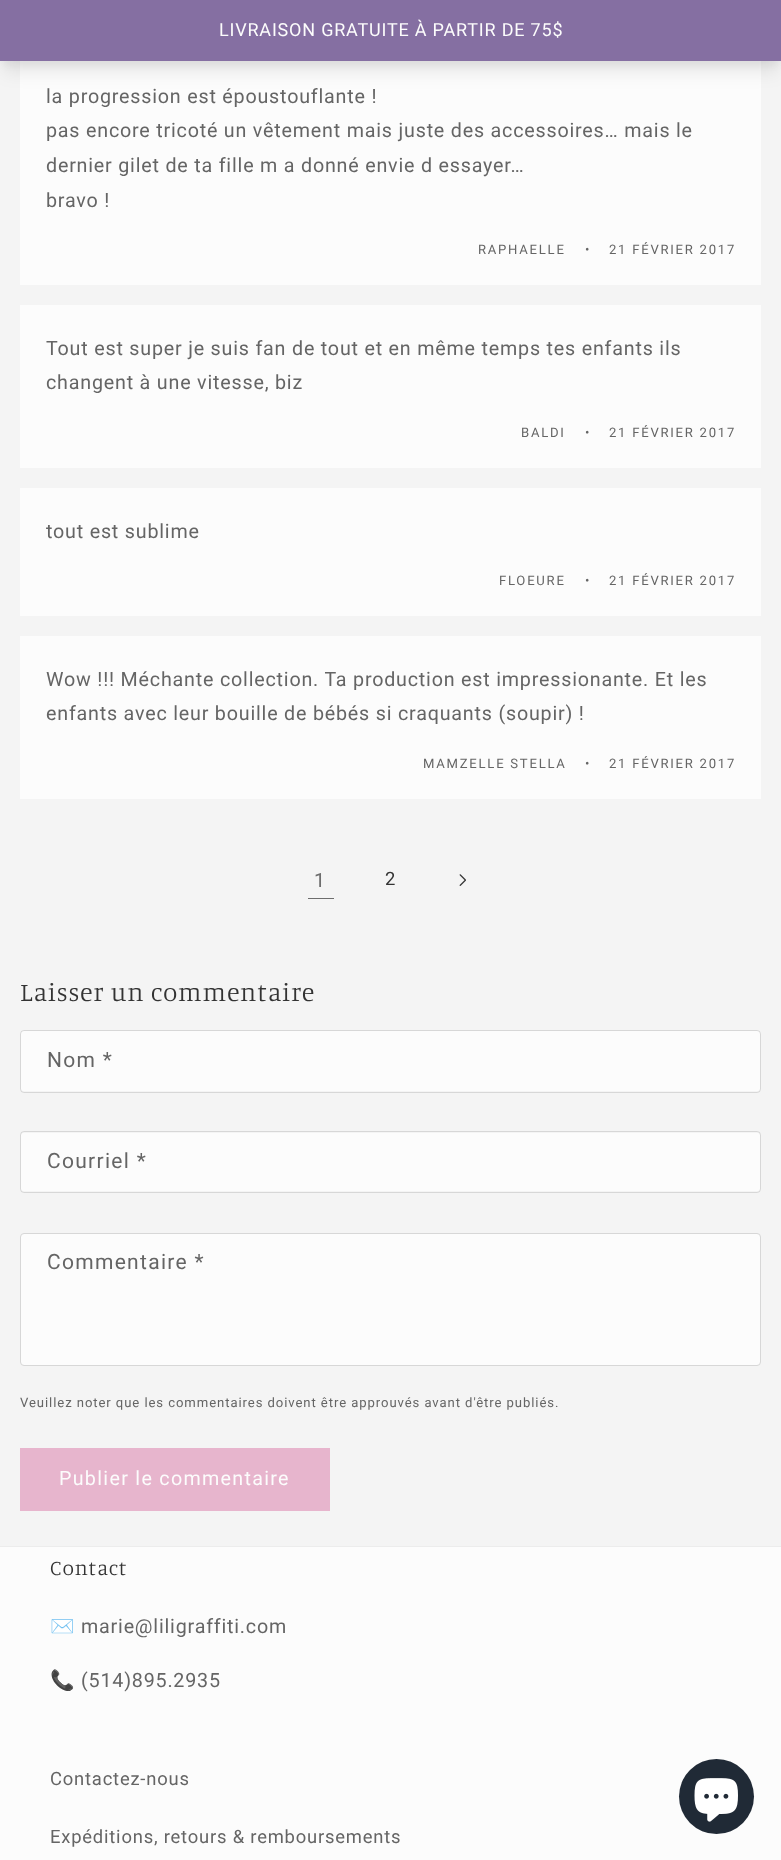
<svg xmlns="http://www.w3.org/2000/svg" width="781" height="1860">
<rect width="100%" height="100%" fill="#fcfcfc"/>
<rect y="61" width="781" height="1485" fill="#f4f4f4"/>
<rect x="20" y="61" width="741" height="224" fill="#fcfcfc"/>
<rect x="3" y="8" width="776" height="56" fill="#0000000d" filter="blur(4px)"/>
<rect x="4" y="16" width="774" height="54" fill="#0000001a" filter="blur(9.5px)"/>
<rect width="781" height="61" fill="#856fa2"/>
<text x="219" y="36" style="font-family:Roboto;font-size:18px;letter-spacing:0.8px;fill:#fcfcfc">LIVRAISON GRATUITE À PARTIR DE 75$</text>
<text x="46" y="103" style="font-family:Roboto;font-size:19.7px;letter-spacing:0.8px;fill:#656565">la progression est époustouflante !</text>
<text x="46" y="137" style="font-family:Roboto;font-size:19.7px;letter-spacing:0.8px;fill:#656565">pas encore tricoté un vêtement mais juste des accessoires… mais le</text>
<text x="46" y="172" style="font-family:Roboto;font-size:19.7px;letter-spacing:0.8px;fill:#656565">dernier gilet de ta fille m a donné envie d essayer…</text>
<text x="46" y="207" style="font-family:Roboto;font-size:19.7px;letter-spacing:0.8px;fill:#656565">bravo !</text>
<text x="478" y="254" style="font-family:Roboto;font-size:13.1px;letter-spacing:1.75px;fill:#656565">RAPHAELLE</text>
<text x="585" y="254" style="font-family:Roboto;font-size:13.1px;letter-spacing:1.75px;fill:#656565">•</text>
<text x="609" y="254" style="font-family:Roboto;font-size:13.1px;letter-spacing:1.75px;fill:#656565">21 FÉVRIER 2017</text>
<rect x="20" y="305" width="741" height="163" fill="#fcfcfc"/>
<text x="46" y="355" style="font-family:Roboto;font-size:19.7px;letter-spacing:0.8px;fill:#656565">Tout est super je suis fan de tout et en même temps tes enfants ils</text>
<text x="46" y="389" style="font-family:Roboto;font-size:19.7px;letter-spacing:0.8px;fill:#656565">changent à une vitesse, biz</text>
<text x="521" y="437" style="font-family:Roboto;font-size:13.1px;letter-spacing:1.75px;fill:#656565">BALDI</text>
<text x="585" y="437" style="font-family:Roboto;font-size:13.1px;letter-spacing:1.75px;fill:#656565">•</text>
<text x="609" y="437" style="font-family:Roboto;font-size:13.1px;letter-spacing:1.75px;fill:#656565">21 FÉVRIER 2017</text>
<rect x="20" y="488" width="741" height="128" fill="#fcfcfc"/>
<text x="46" y="538" style="font-family:Roboto;font-size:19.7px;letter-spacing:0.8px;fill:#656565">tout est sublime</text>
<text x="499" y="585" style="font-family:Roboto;font-size:13.1px;letter-spacing:1.75px;fill:#656565">FLOEURE</text>
<text x="585" y="585" style="font-family:Roboto;font-size:13.1px;letter-spacing:1.75px;fill:#656565">•</text>
<text x="609" y="585" style="font-family:Roboto;font-size:13.1px;letter-spacing:1.75px;fill:#656565">21 FÉVRIER 2017</text>
<rect x="20" y="636" width="741" height="163" fill="#fcfcfc"/>
<text x="46" y="686" style="font-family:Roboto;font-size:19.7px;letter-spacing:0.8px;fill:#656565">Wow !!! Méchante collection. Ta production est impressionante. Et les</text>
<text x="46" y="720" style="font-family:Roboto;font-size:19.7px;letter-spacing:0.8px;fill:#656565">enfants avec leur bouille de bébés si craquants (soupir) !</text>
<text x="423" y="768" style="font-family:Roboto;font-size:13.1px;letter-spacing:1.75px;fill:#656565">MAMZELLE STELLA</text>
<text x="585" y="768" style="font-family:Roboto;font-size:13.1px;letter-spacing:1.75px;fill:#656565">•</text>
<text x="609" y="768" style="font-family:Roboto;font-size:13.1px;letter-spacing:1.75px;fill:#656565">21 FÉVRIER 2017</text>
<text x="314" y="887" style="font-family:Roboto;font-size:19.7px;letter-spacing:0.8px;fill:#6d6d6d">1</text>
<rect x="308" y="898" width="26" height="1" fill="#6d6d6d"/>
<text x="385" y="885" style="font-family:Roboto;font-size:18.4px;letter-spacing:0.8px;fill:#333">2</text>
<image x="459" y="874" width="7" height="12" href="media/1.png"/>
<text x="20" y="1001" style="font-family:Manuale;font-size:26.25px;font-weight:300;letter-spacing:0.8px;fill:#333">Laisser un commentaire</text>
<rect x="21" y="1031" width="739" height="60" rx="2.5" fill="#fcfcfc"/>
<rect x="20.5" y="1030.5" width="740" height="62" rx="3.5" fill="none" stroke="#33333326"/>
<text x="47" y="1067" style="font-family:Roboto;font-size:21px;letter-spacing:1.3px;fill:#656565">Nom *</text>
<rect x="21" y="1133" width="739" height="58" rx="2.5" fill="#fcfcfc"/>
<rect x="20.5" y="1131.5" width="740" height="61" rx="3.5" fill="none" stroke="#33333326"/>
<text x="47" y="1168" style="font-family:Roboto;font-size:21px;letter-spacing:1.3px;fill:#656565">Courriel *</text>
<rect x="21" y="1234" width="739" height="131" rx="2.5" fill="#fcfcfc"/>
<rect x="20.5" y="1233.5" width="740" height="132" rx="3.5" fill="none" stroke="#d7d7d7"/>
<text x="47" y="1269" style="font-family:Roboto;font-size:21px;letter-spacing:1.3px;fill:#656565">Commentaire *</text>
<text x="20" y="1407" style="font-family:Roboto;font-size:13.1px;letter-spacing:0.92px;fill:#656565">Veuillez noter que les commentaires doivent être approuvés avant d'être publiés.</text>
<rect x="20" y="1448" width="310" height="63" fill="#e7b5cd"/>
<text x="59" y="1485" style="font-family:Roboto;font-size:19.7px;letter-spacing:1.3px;fill:#fcfcfc">Publier le commentaire</text>
<rect y="1546" width="781" height="1" fill="#ececec"/>
<text x="50" y="1575" style="font-family:Manuale;font-size:21px;font-weight:300;letter-spacing:0.8px;fill:#333">Contact</text>
<text x="50" y="1633" style="font-family:Noto Color Emoji;font-size:19.7px;letter-spacing:0.8px;fill:#656565">✉️</text>
<text x="81" y="1633" style="font-family:Roboto;font-size:19.7px;letter-spacing:0.8px;fill:#656565">marie@liligraffiti.com</text>
<text x="50" y="1687" style="font-family:Noto Color Emoji;font-size:19.7px;letter-spacing:0.8px;fill:#656565">📞</text>
<text x="81" y="1687" style="font-family:Roboto;font-size:19.7px;letter-spacing:0.8px;fill:#656565">(514)895.2935</text>
<text x="50" y="1785" style="font-family:Roboto;font-size:18.4px;letter-spacing:0.8px;fill:#656565">Contactez-nous</text>
<text x="50" y="1843" style="font-family:Roboto;font-size:18.4px;letter-spacing:0.8px;fill:#656565">Expéditions, retours &amp; remboursements</text>
<circle cx="716.5" cy="1796.5" r="37.5" fill="#202a36"/>
<image x="694" y="1778" width="44" height="44" href="media/2.png"/>
</svg>
